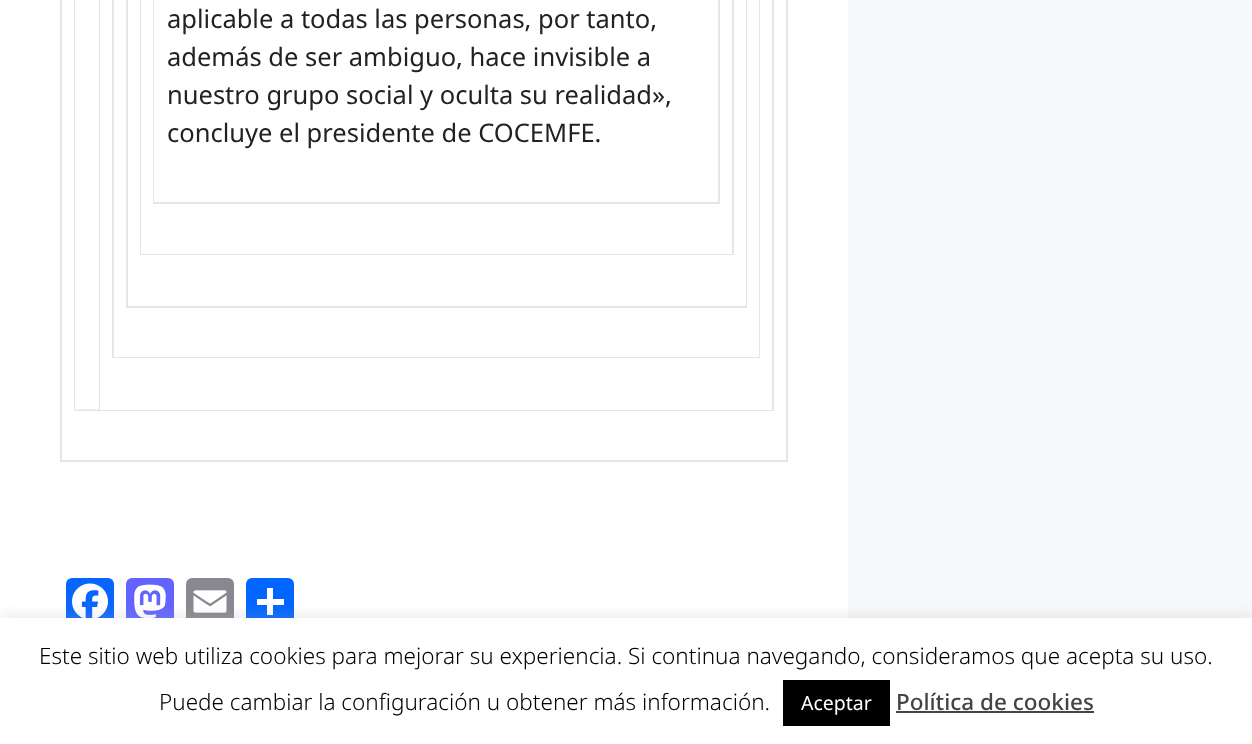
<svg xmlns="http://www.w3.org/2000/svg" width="1252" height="744">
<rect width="100%" height="100%" fill="#f7f8f9"/>
<rect width="848" height="618" fill="#fff"/>
<path d="M60 462v-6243l2 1v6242z" fill="#e6e6e6"/>
<path d="M788-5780v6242l-2-2v-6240z" fill="#e6e6e6"/>
<path d="M788 462h-726v-2h724z" fill="#0000001a"/>
<path d="M74 411v-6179l1 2v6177z" fill="#e6e6e6"/>
<path d="M100-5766v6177l-1-1v-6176z" fill="#e6e6e6"/>
<path d="M100.5 411h-25.5v-1.5h24z" fill="#0000001a"/>
<path d="M774-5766v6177l-2-1v-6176z" fill="#e6e6e6"/>
<path d="M774 411h-674v-1h672z" fill="#0000001a"/>
<path d="M112 358v-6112l2 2v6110z" fill="#e6e6e6"/>
<path d="M760-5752v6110l-1-1v-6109z" fill="#e6e6e6"/>
<path d="M760 358h-646v-1h645z" fill="#0000001a"/>
<path d="M126 308v-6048l2 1v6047z" fill="#e6e6e6"/>
<path d="M747-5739v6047l-1-2v-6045z" fill="#e6e6e6"/>
<path d="M747 308h-619v-2h618z" fill="#0000001a"/>
<path d="M140 255v-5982l1 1v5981z" fill="#e6e6e6"/>
<path d="M734-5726v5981l-2-1v-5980z" fill="#e6e6e6"/>
<path d="M734 255h-593v-1h591z" fill="#0000001a"/>
<path d="M153 204v-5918l1 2v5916z" fill="#e6e6e6"/>
<path d="M720-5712v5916l-2-2v-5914z" fill="#e6e6e6"/>
<path d="M720 204h-566v-2h564z" fill="#0000001a"/>
<text x="167" y="28" style="font-family:Noto Sans;font-size:25.5px;fill:#222">aplicable a todas las personas, por tanto,</text>
<text x="167" y="66" style="font-family:Noto Sans;font-size:25.5px;fill:#222">además de ser ambiguo, hace invisible a</text>
<text x="167" y="104" style="font-family:Noto Sans;font-size:25.5px;fill:#222">nuestro grupo social y oculta su realidad»,</text>
<text x="167" y="142" style="font-family:Noto Sans;font-size:25.5px;fill:#222">concluye el presidente de COCEMFE.</text>
<rect x="66" y="578" width="48" height="48" rx="6" fill="#0866ff"/>
<image x="72" y="583" width="36" height="35" href="media/1.png"/>
<rect x="126" y="578" width="48" height="48" rx="6" fill="#6364ff"/>
<image x="134" y="584" width="32" height="34" href="media/2.png"/>
<rect x="186" y="578" width="48" height="48" rx="6" fill="#888990"/>
<image x="193" y="590" width="34" height="23" href="media/3.png"/>
<rect x="246" y="578" width="48" height="48" rx="6" fill="#0166ff"/>
<rect x="267" y="588" width="6" height="27" fill="#fff"/>
<rect x="257" y="599" width="27" height="6" fill="#fff"/>
<rect y="617" width="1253" height="126" fill="#acabab4d" filter="blur(7.5px)"/>
<rect y="618" width="1252" height="126" fill="#fff"/>
<text x="39" y="664" style="font-family:Noto Sans;font-size:22.5px;font-weight:300;fill:#000">Este sitio web utiliza cookies para mejorar su experiencia. Si continua navegando, consideramos que acepta su uso.</text>
<text x="159" y="710" style="font-family:Noto Sans;font-size:22.5px;font-weight:300;fill:#000">Puede cambiar la configuración u obtener más información.</text>
<rect x="783" y="680" width="107" height="46" fill="#000"/>
<text x="801" y="710" style="font-family:Noto Sans;font-size:19.5px;fill:#fff">Aceptar</text>
<text x="896" y="710" style="font-family:Noto Sans;font-size:22.5px;font-weight:500;fill:#444">Política de cookies</text>
<rect x="896" y="711" width="198" height="2" fill="#444"/>
</svg>
